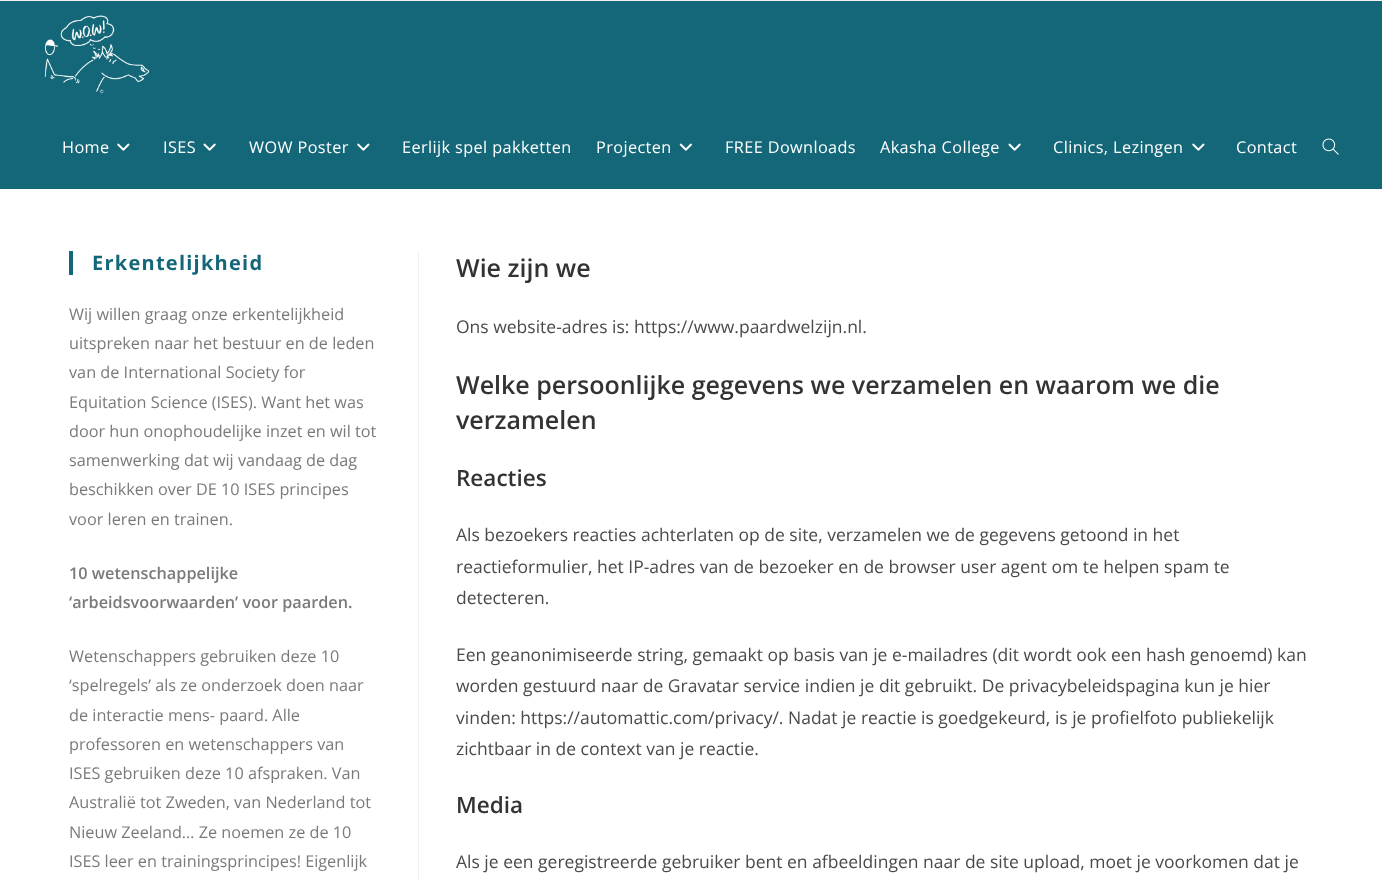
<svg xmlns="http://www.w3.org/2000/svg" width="1382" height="880">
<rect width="100%" height="100%" fill="#fff"/>
<rect width="1382" height="1" fill="#f1f1f1"/>
<rect y="1" width="1382" height="188" fill="#146778"/>
<image x="44" y="15" width="106" height="79" href="media/1.png"/>
<text x="62" y="153" style="font-family:Open Sans;font-size:16.25px;letter-spacing:0.4px;fill:#fff">Home</text>
<image x="117" y="143" width="13" height="8" href="media/2.png"/>
<text x="163" y="153" style="font-family:Open Sans;font-size:16.25px;letter-spacing:0.4px;fill:#fff">ISES</text>
<image x="203" y="143" width="13" height="8" href="media/3.png"/>
<text x="249" y="153" style="font-family:Open Sans;font-size:16.25px;letter-spacing:0.4px;fill:#fff">WOW Poster</text>
<image x="357" y="143" width="13" height="8" href="media/2.png"/>
<text x="402" y="153" style="font-family:Open Sans;font-size:16.25px;letter-spacing:0.4px;fill:#fff">Eerlijk spel pakketten</text>
<text x="596" y="153" style="font-family:Open Sans;font-size:16.25px;letter-spacing:0.4px;fill:#fff">Projecten</text>
<image x="679" y="143" width="13" height="8" href="media/4.png"/>
<text x="725" y="153" style="font-family:Open Sans;font-size:16.25px;letter-spacing:0.4px;fill:#fff">FREE Downloads</text>
<text x="880" y="153" style="font-family:Open Sans;font-size:16.25px;letter-spacing:0.4px;fill:#fff">Akasha College</text>
<image x="1008" y="143" width="13" height="8" href="media/3.png"/>
<text x="1053" y="153" style="font-family:Open Sans;font-size:16.25px;letter-spacing:0.4px;fill:#fff">Clinics, Lezingen</text>
<image x="1192" y="143" width="13" height="8" href="media/2.png"/>
<text x="1236" y="153" style="font-family:Open Sans;font-size:16.25px;letter-spacing:0.4px;fill:#fff">Contact</text>
<image x="1322" y="138" width="17" height="17" href="media/5.png"/>
<rect x="69" y="251" width="4" height="24" fill="#146778"/>
<text x="92" y="270" style="font-family:Open Sans;font-size:20px;font-weight:bold;letter-spacing:1.25px;fill:#146778">Erkentelijkheid</text>
<text x="69" y="320" style="font-family:Open Sans;font-size:16.25px;fill:#7a7a7a">Wij willen graag onze erkentelijkheid</text>
<text x="69" y="349" style="font-family:Open Sans;font-size:16.25px;fill:#7a7a7a">uitspreken naar het bestuur en de leden</text>
<text x="69" y="378" style="font-family:Open Sans;font-size:16.25px;fill:#7a7a7a">van de International Society for</text>
<text x="69" y="408" style="font-family:Open Sans;font-size:16.25px;fill:#7a7a7a">Equitation Science (ISES). Want het was</text>
<text x="69" y="437" style="font-family:Open Sans;font-size:16.25px;fill:#7a7a7a">door hun onophoudelijke inzet en wil tot</text>
<text x="69" y="466" style="font-family:Open Sans;font-size:16.25px;fill:#7a7a7a">samenwerking dat wij vandaag de dag</text>
<text x="69" y="495" style="font-family:Open Sans;font-size:16.25px;fill:#7a7a7a">beschikken over DE 10 ISES principes</text>
<text x="69" y="525" style="font-family:Open Sans;font-size:16.25px;fill:#7a7a7a">voor leren en trainen.</text>
<text x="69" y="579" style="font-family:Open Sans;font-size:16.25px;font-weight:600;fill:#7a7a7a">10 wetenschappelijke</text>
<text x="69" y="608" style="font-family:Open Sans;font-size:16.25px;font-weight:600;fill:#7a7a7a">‘arbeidsvoorwaarden’ voor paarden.</text>
<text x="69" y="662" style="font-family:Open Sans;font-size:16.25px;fill:#7a7a7a">Wetenschappers gebruiken deze 10</text>
<text x="69" y="691" style="font-family:Open Sans;font-size:16.25px;fill:#7a7a7a">‘spelregels’ als ze onderzoek doen naar</text>
<text x="69" y="721" style="font-family:Open Sans;font-size:16.25px;fill:#7a7a7a">de interactie mens- paard. Alle</text>
<text x="69" y="750" style="font-family:Open Sans;font-size:16.25px;fill:#7a7a7a">professoren en wetenschappers van</text>
<text x="69" y="779" style="font-family:Open Sans;font-size:16.25px;fill:#7a7a7a">ISES gebruiken deze 10 afspraken. Van</text>
<text x="69" y="808" style="font-family:Open Sans;font-size:16.25px;fill:#7a7a7a">Australië tot Zweden, van Nederland tot</text>
<text x="69" y="838" style="font-family:Open Sans;font-size:16.25px;fill:#7a7a7a">Nieuw Zeeland… Ze noemen ze de 10</text>
<text x="69" y="867" style="font-family:Open Sans;font-size:16.25px;fill:#7a7a7a">ISES leer en trainingsprincipes! Eigenlijk</text>
<rect x="418" y="251" width="1" height="629" fill="#f1f1f1"/>
<text x="456" y="277" style="font-family:Open Sans;font-size:25px;font-weight:600;fill:#333">Wie zijn we</text>
<text x="456" y="333" style="font-family:Open Sans;font-size:17.5px;fill:#4a4a4a">Ons website-adres is: https://www.paardwelzijn.nl.</text>
<text x="456" y="394" style="font-family:Open Sans;font-size:25px;font-weight:600;fill:#333">Welke persoonlijke gegevens we verzamelen en waarom we die</text>
<text x="456" y="429" style="font-family:Open Sans;font-size:25px;font-weight:600;fill:#333">verzamelen</text>
<text x="456" y="486" style="font-family:Open Sans;font-size:22.5px;font-weight:600;fill:#333">Reacties</text>
<text x="456" y="541" style="font-family:Open Sans;font-size:17.5px;fill:#4a4a4a">Als bezoekers reacties achterlaten op de site, verzamelen we de gegevens getoond in het</text>
<text x="456" y="573" style="font-family:Open Sans;font-size:17.5px;fill:#4a4a4a">reactieformulier, het IP-adres van de bezoeker en de browser user agent om te helpen spam te</text>
<text x="456" y="604" style="font-family:Open Sans;font-size:17.5px;fill:#4a4a4a">detecteren.</text>
<text x="456" y="661" style="font-family:Open Sans;font-size:17.5px;fill:#4a4a4a">Een geanonimiseerde string, gemaakt op basis van je e-mailadres (dit wordt ook een hash genoemd) kan</text>
<text x="456" y="692" style="font-family:Open Sans;font-size:17.5px;fill:#4a4a4a">worden gestuurd naar de Gravatar service indien je dit gebruikt. De privacybeleidspagina kun je hier</text>
<text x="456" y="724" style="font-family:Open Sans;font-size:17.5px;fill:#4a4a4a">vinden: https://automattic.com/privacy/. Nadat je reactie is goedgekeurd, is je profielfoto publiekelijk</text>
<text x="456" y="755" style="font-family:Open Sans;font-size:17.5px;fill:#4a4a4a">zichtbaar in de context van je reactie.</text>
<text x="456" y="813" style="font-family:Open Sans;font-size:22.5px;font-weight:600;fill:#333">Media</text>
<text x="456" y="868" style="font-family:Open Sans;font-size:17.5px;fill:#4a4a4a">Als je een geregistreerde gebruiker bent en afbeeldingen naar de site upload, moet je voorkomen dat je</text>
</svg>
